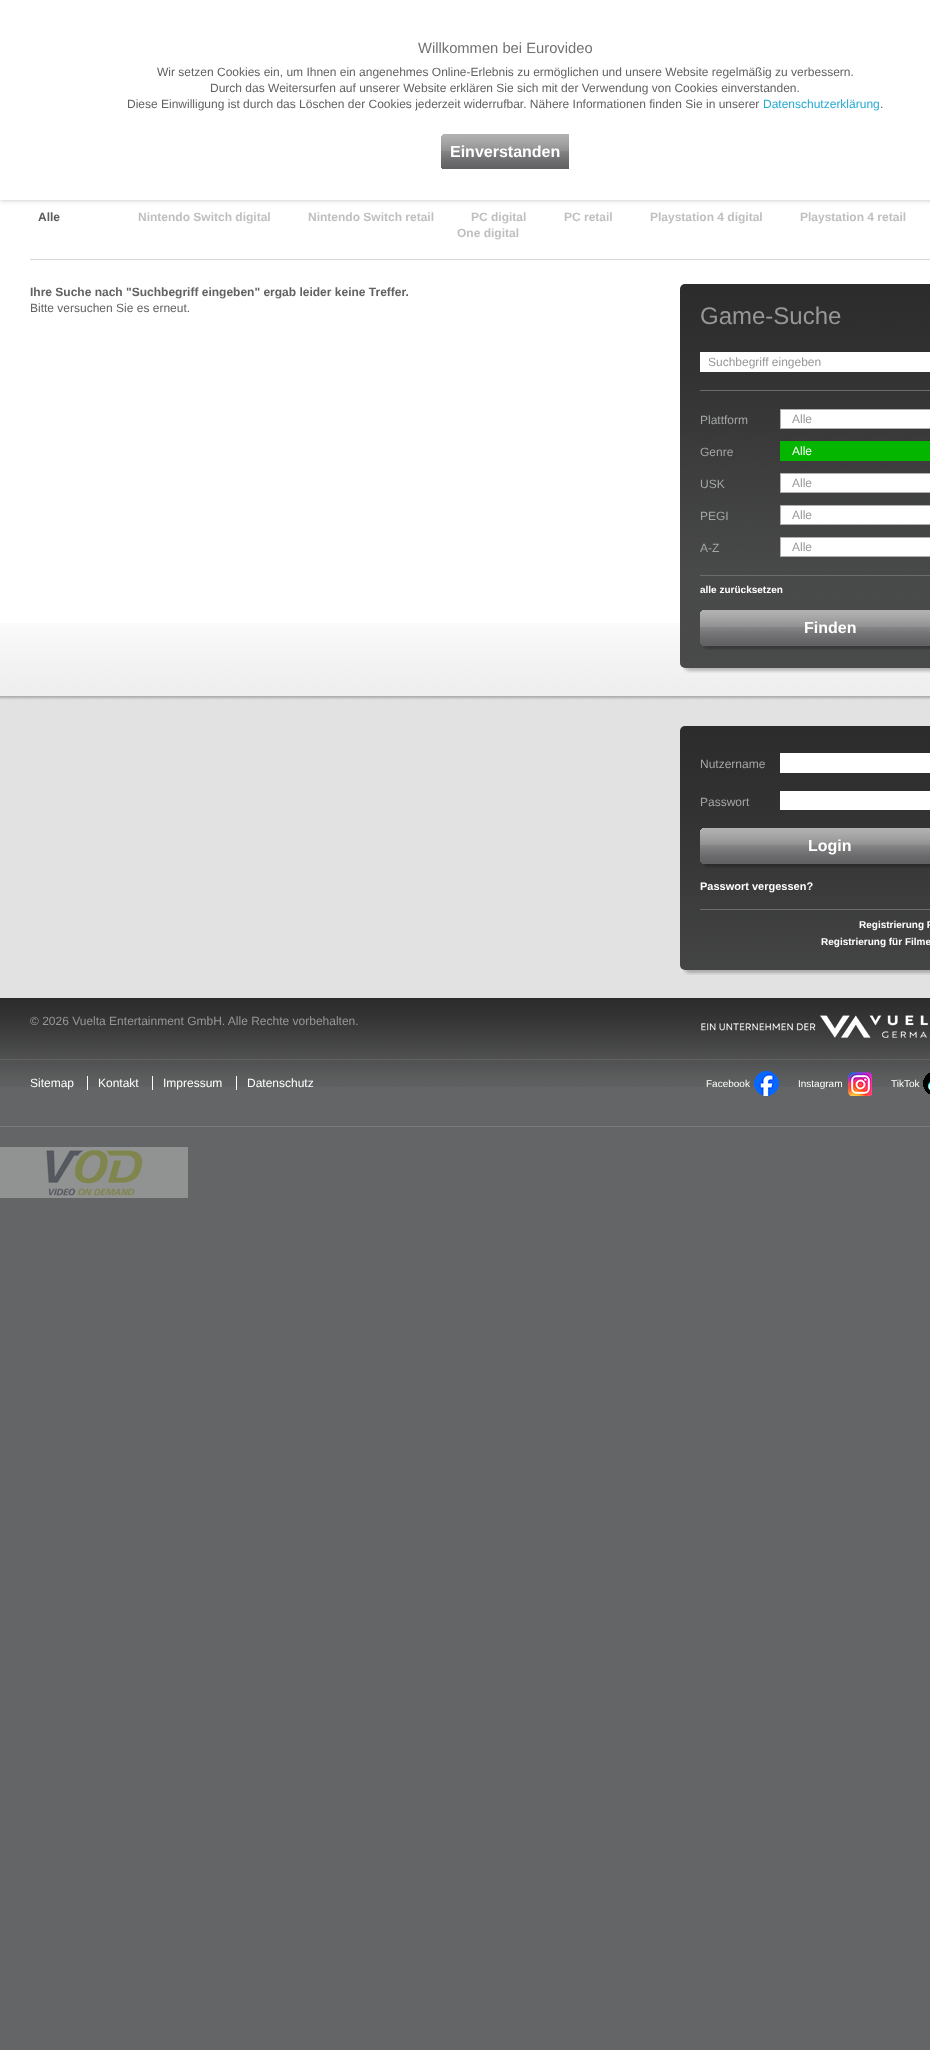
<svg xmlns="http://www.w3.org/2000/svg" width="930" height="2050">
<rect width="100%" height="100%" fill="#646566"/>
<rect y="200" width="930" height="423" fill="#fff"/>
<rect width="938" height="200" fill="#00000040" filter="blur(2.5px)"/>
<rect width="930" height="200" fill="#fff"/>
<text x="418" y="53" style="font-family:Liberation Sans;font-size:14.75px;fill:#717272">Willkommen bei Eurovideo</text>
<text x="157" y="76" style="font-family:Liberation Sans;font-size:12px;fill:#626264">Wir setzen Cookies ein, um Ihnen ein angenehmes Online-Erlebnis zu ermöglichen und unsere Website regelmäßig zu verbessern.</text>
<text x="210" y="92" style="font-family:Liberation Sans;font-size:12px;fill:#626264">Durch das Weitersurfen auf unserer Website erklären Sie sich mit der Verwendung von Cookies einverstanden.</text>
<text x="127" y="108" style="font-family:Liberation Sans;font-size:12px;fill:#626264">Diese Einwilligung ist durch das Löschen der Cookies jederzeit widerrufbar. Nähere Informationen finden Sie in unserer</text>
<text x="763" y="108" style="font-family:Liberation Sans;font-size:12px;fill:#26a9d2">Datenschutzerklärung</text>
<text x="880" y="108" style="font-family:Liberation Sans;font-size:12px;fill:#626264">.</text>
<image x="441" y="134" width="128" height="35" href="media/1.png"/>
<text x="450" y="157" style="font-family:Liberation Sans;font-size:16px;font-weight:bold;fill:#fff">Einverstanden</text>
<image x="0" y="623" width="930" height="73" href="media/2.png"/>
<rect x="30" y="259" width="900" height="1" fill="#d6d6d6"/>
<text x="38" y="221" style="font-family:Liberation Sans;font-size:12px;font-weight:bold;fill:#5b5c5f">Alle</text>
<text x="138" y="221" style="font-family:Liberation Sans;font-size:12px;font-weight:bold;fill:#bfbfbf">Nintendo Switch digital</text>
<text x="308" y="221" style="font-family:Liberation Sans;font-size:12px;font-weight:bold;fill:#bfbfbf">Nintendo Switch retail</text>
<text x="471" y="221" style="font-family:Liberation Sans;font-size:12px;font-weight:bold;fill:#bfbfbf">PC digital</text>
<text x="564" y="221" style="font-family:Liberation Sans;font-size:12px;font-weight:bold;fill:#bfbfbf">PC retail</text>
<text x="650" y="221" style="font-family:Liberation Sans;font-size:12px;font-weight:bold;fill:#bfbfbf">Playstation 4 digital</text>
<text x="800" y="221" style="font-family:Liberation Sans;font-size:12px;font-weight:bold;fill:#bfbfbf">Playstation 4 retail</text>
<text x="457" y="237" style="font-family:Liberation Sans;font-size:12px;font-weight:bold;fill:#bfbfbf">One digital</text>
<text x="30" y="296" style="font-family:Liberation Sans;font-size:12px;font-weight:bold;fill:#626264">Ihre Suche nach "Suchbegriff eingeben" ergab leider keine Treffer.</text>
<text x="30" y="312" style="font-family:Liberation Sans;font-size:12px;fill:#626264">Bitte versuchen Sie es erneut.</text>
<image x="680" y="284" width="250" height="384" href="media/3.png"/>
<text x="700" y="324" style="font-family:Liberation Sans;font-size:24px;fill:#979797">Game-Suche</text>
<rect x="700" y="352" width="230" height="20" fill="#fff"/>
<text x="708" y="366" style="font-family:Liberation Sans;font-size:12px;fill:#979797">Suchbegriff eingeben</text>
<rect x="700" y="390" width="230" height="1" fill="#6b6c6b"/>
<text x="700" y="424" style="font-family:Liberation Sans;font-size:12px;fill:#a5a6a6">Plattform</text>
<rect x="780.5" y="409.5" width="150" height="19" fill="#fff" stroke="#b0afab"/>
<text x="792" y="423" style="font-family:Liberation Sans;font-size:12px;fill:#979797">Alle</text>
<text x="700" y="456" style="font-family:Liberation Sans;font-size:12px;fill:#a5a6a6">Genre</text>
<rect x="780" y="441" width="150" height="20" fill="#05b600"/>
<text x="792" y="455" style="font-family:Liberation Sans;font-size:12px;fill:#fff">Alle</text>
<text x="700" y="488" style="font-family:Liberation Sans;font-size:12px;fill:#a5a6a6">USK</text>
<rect x="780.5" y="473.5" width="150" height="19" fill="#fff" stroke="#b0afab"/>
<text x="792" y="487" style="font-family:Liberation Sans;font-size:12px;fill:#979797">Alle</text>
<text x="700" y="520" style="font-family:Liberation Sans;font-size:12px;fill:#a5a6a6">PEGI</text>
<rect x="780.5" y="505.5" width="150" height="19" fill="#fff" stroke="#b0afab"/>
<text x="792" y="519" style="font-family:Liberation Sans;font-size:12px;fill:#979797">Alle</text>
<text x="700" y="552" style="font-family:Liberation Sans;font-size:12px;fill:#a5a6a6">A-Z</text>
<rect x="780.5" y="537.5" width="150" height="19" fill="#fff" stroke="#b0afab"/>
<text x="792" y="551" style="font-family:Liberation Sans;font-size:12px;fill:#979797">Alle</text>
<rect x="700" y="575" width="230" height="1" fill="#6b6c6b"/>
<text x="700" y="593" style="font-family:Liberation Sans;font-size:10px;font-weight:bold;fill:#fff">alle zurücksetzen</text>
<image x="700" y="610" width="230" height="36" href="media/4.png"/>
<text x="804" y="633" style="font-family:Liberation Sans;font-size:16px;font-weight:bold;fill:#fff">Finden</text>
<image x="703" y="646" width="227" height="4" href="media/5.png"/>
<image x="683" y="668" width="247" height="5" href="media/6.png"/>
<rect y="700" width="930" height="298" fill="#e2e2e2"/>
<image x="0" y="696" width="930" height="4" href="media/7.png"/>
<image x="680" y="726" width="250" height="244" href="media/8.png"/>
<text x="700" y="768" style="font-family:Liberation Sans;font-size:12px;fill:#a5a6a6">Nutzername</text>
<rect x="780" y="753" width="150" height="20" fill="#fff"/>
<text x="700" y="806" style="font-family:Liberation Sans;font-size:12px;fill:#a5a6a6">Passwort</text>
<rect x="780" y="791" width="150" height="19" fill="#fff"/>
<image x="700" y="828" width="230" height="36" href="media/9.png"/>
<text x="808" y="851" style="font-family:Liberation Sans;font-size:16px;font-weight:bold;fill:#fff">Login</text>
<image x="703" y="864" width="227" height="4" href="media/10.png"/>
<text x="700" y="890" style="font-family:Liberation Sans;font-size:11px;font-weight:bold;fill:#fff">Passwort vergessen?</text>
<rect x="700" y="909" width="230" height="1" fill="#6b6c6b"/>
<text x="859" y="928" style="font-family:Liberation Sans;font-size:10px;font-weight:bold;fill:#fff">Registrierung P</text>
<text x="821" y="945" style="font-family:Liberation Sans;font-size:10px;font-weight:bold;fill:#fff">Registrierung für Filme</text>
<image x="683" y="970" width="247" height="5" href="media/11.png"/>
<image x="0" y="998" width="930" height="89" href="media/12.png"/>
<rect y="1059" width="930" height="1" fill="#616161"/>
<text x="30" y="1025" style="font-family:Liberation Sans;font-size:12px;fill:#979797">© 2026 Vuelta Entertainment GmbH. Alle Rechte vorbehalten.</text>
<image x="701" y="1015" width="227" height="23" href="media/13.png"/>
<text x="30" y="1087" style="font-family:Liberation Sans;font-size:12px;fill:#fff">Sitemap</text>
<text x="98" y="1087" style="font-family:Liberation Sans;font-size:12px;fill:#fff">Kontakt</text>
<rect x="87" y="1076" width="1" height="14" fill="#fff"/>
<text x="163" y="1087" style="font-family:Liberation Sans;font-size:12px;fill:#fff">Impressum</text>
<rect x="152" y="1076" width="1" height="14" fill="#fff"/>
<text x="247" y="1087" style="font-family:Liberation Sans;font-size:12px;fill:#fff">Datenschutz</text>
<rect x="236" y="1076" width="1" height="14" fill="#fff"/>
<text x="706" y="1087" style="font-family:Liberation Sans;font-size:10px;fill:#fff">Facebook</text>
<image x="754" y="1071" width="25" height="25" href="media/14.png"/>
<text x="798" y="1087" style="font-family:Liberation Sans;font-size:10px;fill:#fff">Instagram</text>
<image x="848" y="1072" width="24" height="24" href="media/15.png"/>
<text x="891" y="1087" style="font-family:Liberation Sans;font-size:10px;fill:#fff">TikTok</text>
<image x="923" y="1073" width="7" height="21" href="media/16.png"/>
<rect y="1126" width="930" height="1" fill="#797b7b"/>
<image x="0" y="1147" width="188" height="51" href="media/17.png"/>
</svg>
